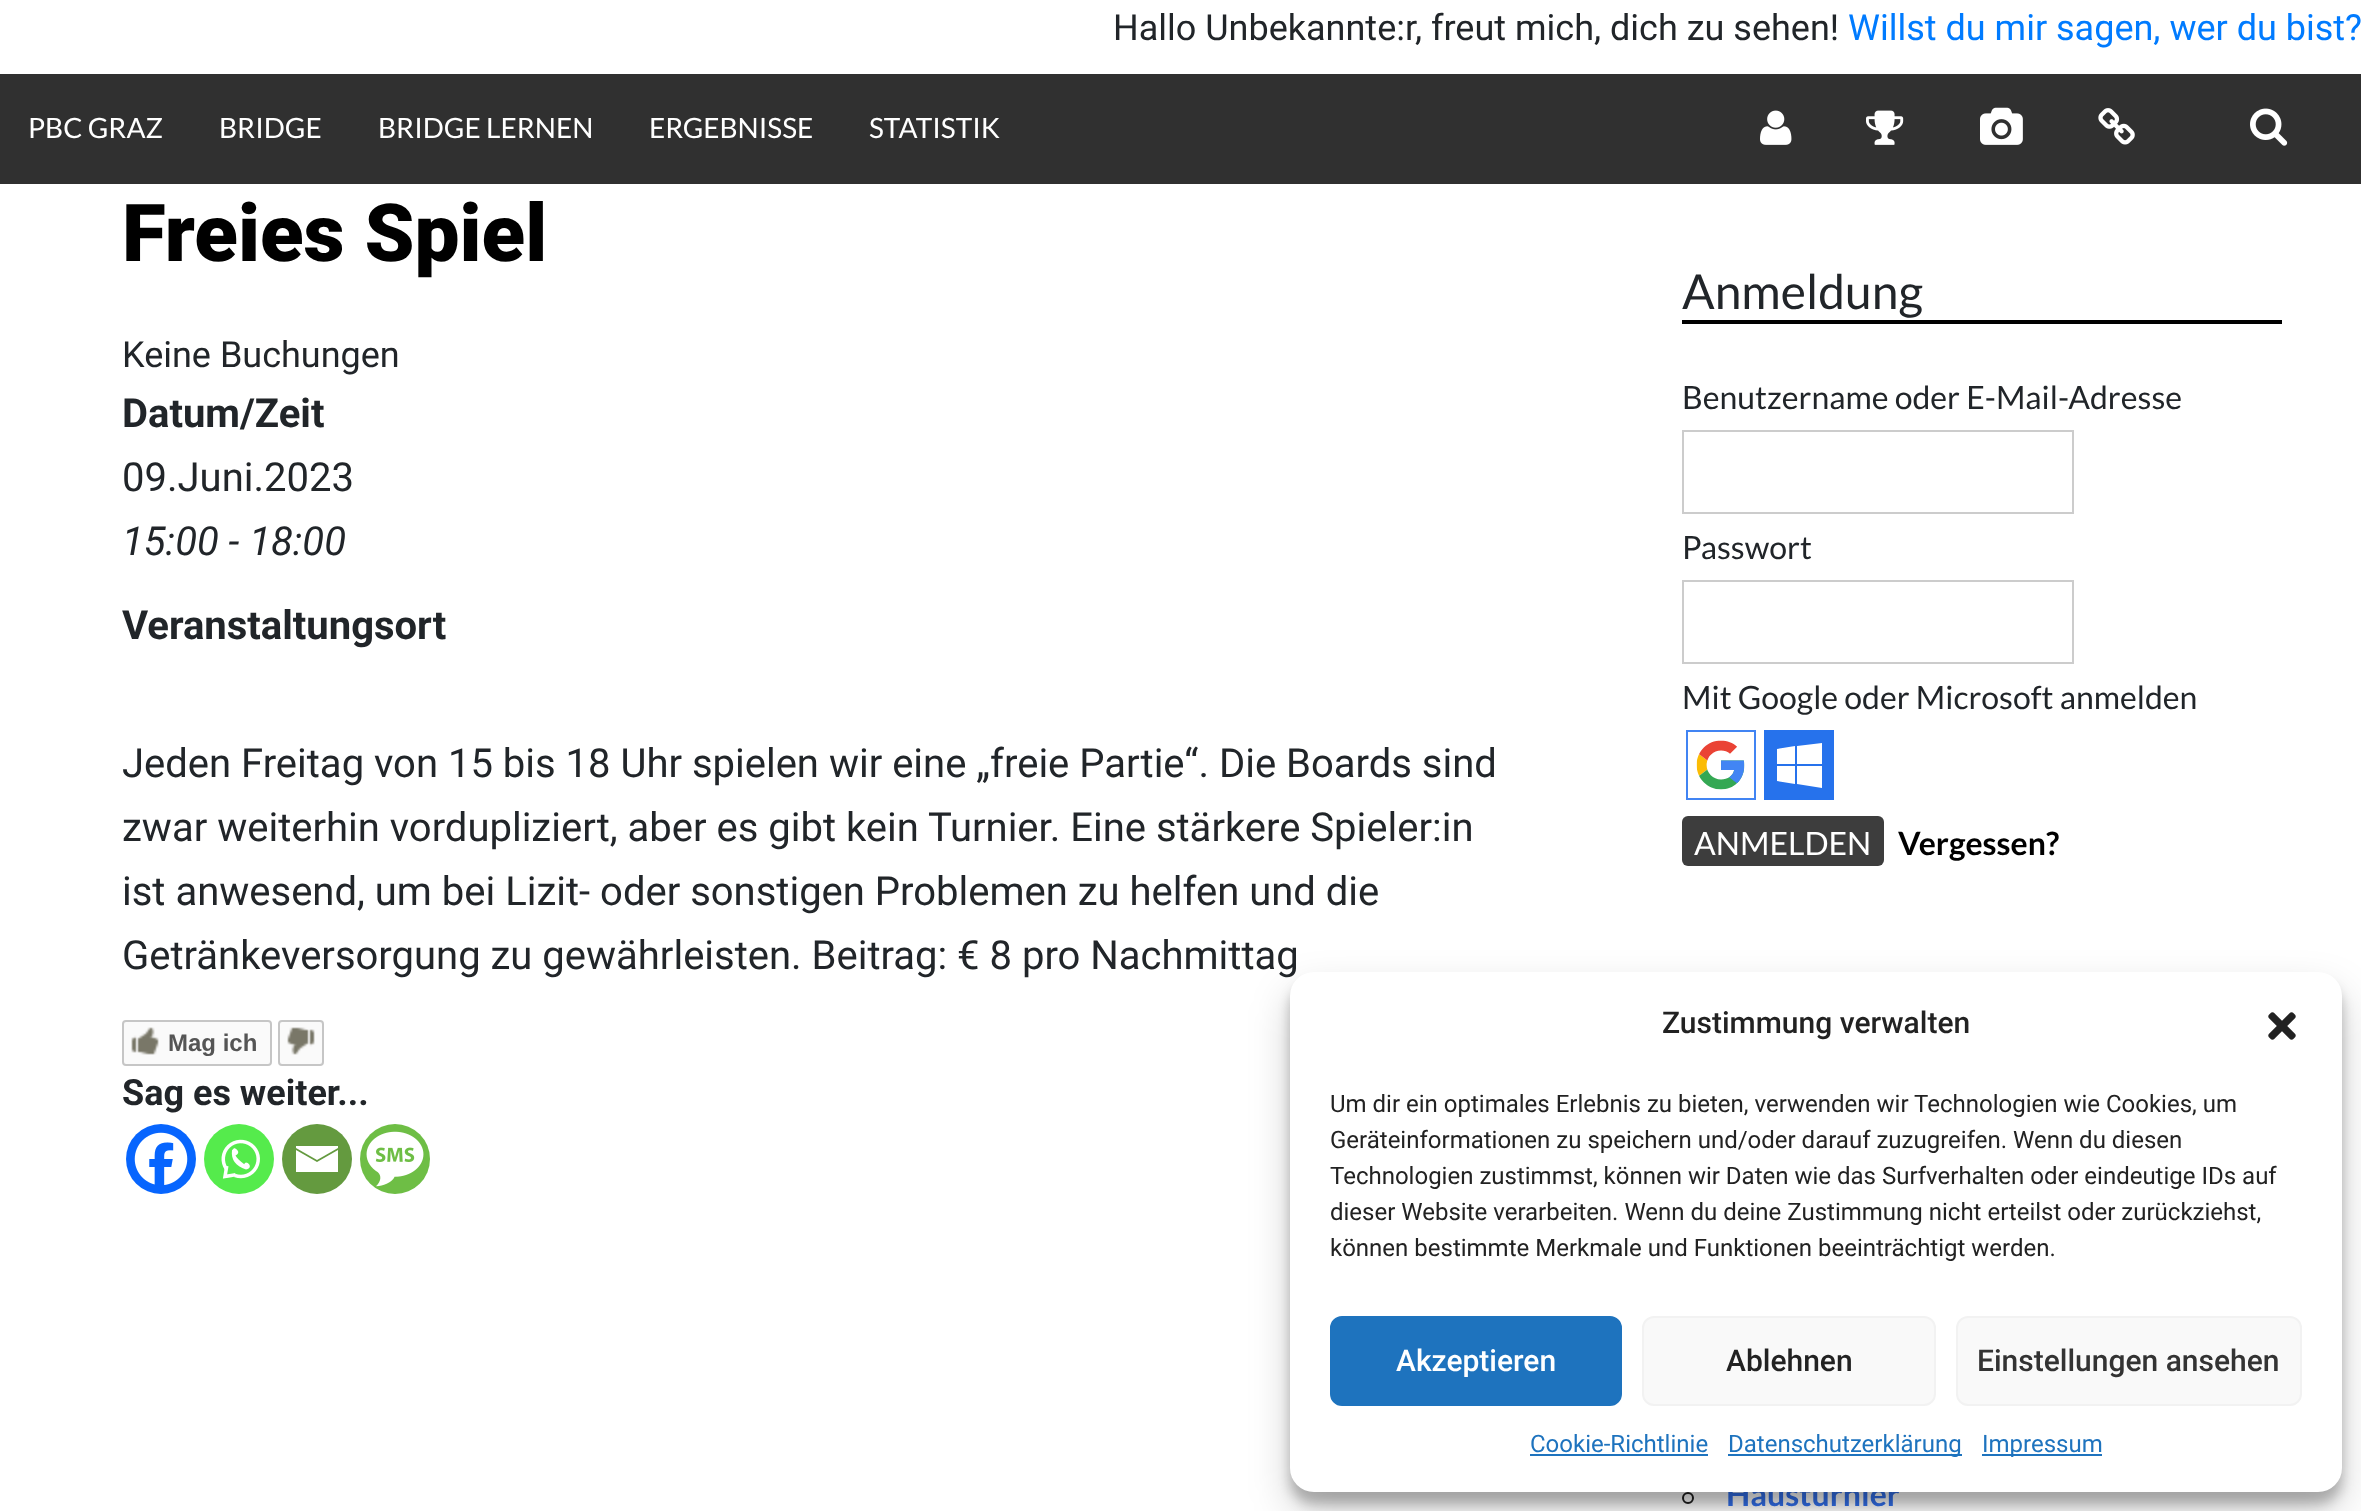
<svg xmlns="http://www.w3.org/2000/svg" width="2361" height="1511">
<rect width="100%" height="100%" fill="#fff"/>
<text x="1113" y="40" style="font-family:Roboto;font-size:36px;fill:#212529">Hallo Unbekannte:r, freut mich, dich zu sehen!</text>
<text x="1848" y="40" style="font-family:Roboto;font-size:36px;fill:#007bff">Willst du mir sagen, wer du bist?</text>
<rect y="74" width="2361" height="110" fill="#303030"/>
<text x="28" y="138" style="font-family:Lato;font-size:28px;fill:#fff">PBC GRAZ</text>
<text x="219" y="138" style="font-family:Lato;font-size:28px;fill:#fff">BRIDGE</text>
<text x="378" y="138" style="font-family:Lato;font-size:28px;fill:#fff">BRIDGE LERNEN</text>
<text x="649" y="138" style="font-family:Lato;font-size:28px;fill:#fff">ERGEBNISSE</text>
<text x="869" y="138" style="font-family:Lato;font-size:28px;fill:#fff">STATISTIK</text>
<image x="1760" y="110" width="32" height="35" href="media/1.png"/>
<image x="1866" y="110" width="38" height="35" href="media/2.png"/>
<image x="1980" y="107" width="43" height="38" href="media/3.png"/>
<image x="2098" y="108" width="37" height="37" href="media/4.png"/>
<image x="2250" y="108" width="38" height="38" href="media/5.png"/>
<text x="122" y="261" style="font-family:Roboto;font-size:80px;font-weight:900;fill:#000">Freies Spiel</text>
<text x="122" y="367" style="font-family:Roboto;font-size:36px;fill:#212529">Keine Buchungen</text>
<text x="122" y="427" style="font-family:Roboto;font-size:40px;font-weight:bold;fill:#212529">Datum/Zeit</text>
<text x="122" y="491" style="font-family:Roboto;font-size:40px;fill:#212529">09.Juni.2023</text>
<text x="122" y="555" style="font-family:Roboto;font-size:40px;font-style:italic;fill:#212529">15:00 - 18:00</text>
<text x="122" y="639" style="font-family:Roboto;font-size:40px;font-weight:bold;fill:#212529">Veranstaltungsort</text>
<text x="122" y="777" style="font-family:Roboto;font-size:40px;fill:#212529">Jeden Freitag von 15 bis 18 Uhr spielen wir eine „freie Partie“. Die Boards sind</text>
<text x="122" y="841" style="font-family:Roboto;font-size:40px;fill:#212529">zwar weiterhin vordupliziert, aber es gibt kein Turnier. Eine stärkere Spieler:in</text>
<text x="122" y="905" style="font-family:Roboto;font-size:40px;fill:#212529">ist anwesend, um bei Lizit- oder sonstigen Problemen zu helfen und die</text>
<text x="122" y="969" style="font-family:Roboto;font-size:40px;fill:#212529">Getränkeversorgung zu gewährleisten. Beitrag: € 8 pro Nachmittag</text>
<rect x="123" y="1021" width="148" height="44" rx="3" fill="#fafafa" stroke="#c6c6c6" stroke-width="2"/>
<image x="131" y="1027" width="28" height="28" href="media/6.png"/>
<text x="168" y="1051" style="font-family:Liberation Sans;font-size:24px;font-weight:bold;fill:#555">Mag ich</text>
<rect x="279" y="1021" width="44" height="44" rx="3" fill="#fafafa" stroke="#c6c6c6" stroke-width="2"/>
<image x="287" y="1027" width="28" height="28" href="media/7.png"/>
<text x="122" y="1105" style="font-family:Roboto;font-size:36px;font-weight:bold;fill:#212529">Sag es weiter...</text>
<circle cx="161" cy="1159" r="35" fill="#0765fe"/>
<image x="134" y="1132" width="54" height="53" href="media/8.png"/>
<circle cx="239" cy="1159" r="35" fill="#55eb4c"/>
<image x="221" y="1139" width="39" height="40" href="media/9.png"/>
<circle cx="317" cy="1159" r="35" fill="#649a3f"/>
<path d="M294 1146h44v2l-21 12l-21-12v-2m0 4l21 12l21-12v22h-42v-22" fill="#fff"/>
<circle cx="395" cy="1159" r="35" fill="#6ebe45"/>
<image x="366" y="1131" width="58" height="56" href="media/10.png"/>
<rect x="1682" y="320" width="600" height="4" fill="#000"/>
<text x="1682" y="309" style="font-family:Lato;font-size:48px;fill:#212529">Anmeldung</text>
<text x="1682" y="409" style="font-family:Lato;font-size:32px;fill:#212529">Benutzername oder E-Mail-Adresse</text>
<rect x="1683" y="431" width="390" height="82" fill="none" stroke="#ccc" stroke-width="2"/>
<text x="1682" y="559" style="font-family:Lato;font-size:32px;fill:#212529">Passwort</text>
<rect x="1683" y="581" width="390" height="82" fill="none" stroke="#ccc" stroke-width="2"/>
<text x="1682" y="709" style="font-family:Lato;font-size:32px;fill:#212529">Mit Google oder Microsoft anmelden</text>
<rect x="1687" y="731" width="68" height="68" fill="none" stroke="#4184f3" stroke-width="2"/>
<image x="1696" y="740" width="49" height="50" href="media/11.png"/>
<rect x="1764" y="730" width="70" height="70" fill="#2672ec"/>
<path d="M1777 749l18-3v18h-18zm18 17v18l-18-3v-15zm2-20l25-3v21h-25zm25 20v22l-25-4v-18z" fill="#fff"/>
<rect x="1682" y="816" width="202" height="50" rx="6" fill="#3d3d3d"/>
<text x="1694" y="855" style="font-family:Lato;font-size:32px;fill:#fff">ANMELDEN</text>
<text x="1898" y="855" style="font-family:Lato;font-size:32px;font-weight:bold;fill:#000">Vergessen?</text>
<circle cx="1688" cy="1498" r="5" fill="none" stroke="#212121" stroke-width="2"/>
<text x="1726" y="1506" style="font-family:Lato;font-size:32px;font-weight:bold;fill:#3372f0">Hausturnier</text>
<rect x="1290" y="984" width="1052" height="520" rx="24" fill="#0000003b" filter="blur(6px)"/>
<rect x="1290" y="992" width="1052" height="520" rx="24" fill="#00000030" filter="blur(20px)"/>
<rect x="1290" y="972" width="1052" height="520" rx="24" fill="#fff"/>
<text x="1662" y="1033" style="font-family:Roboto;font-size:30px;font-weight:500;fill:#222">Zustimmung verwalten</text>
<image x="2268" y="1012" width="28" height="28" href="media/12.png"/>
<text x="1330" y="1112" style="font-family:Roboto;font-size:24px;fill:#222">Um dir ein optimales Erlebnis zu bieten, verwenden wir Technologien wie Cookies, um</text>
<text x="1330" y="1148" style="font-family:Roboto;font-size:24px;fill:#222">Geräteinformationen zu speichern und/oder darauf zuzugreifen. Wenn du diesen</text>
<text x="1330" y="1184" style="font-family:Roboto;font-size:24px;fill:#222">Technologien zustimmst, können wir Daten wie das Surfverhalten oder eindeutige IDs auf</text>
<text x="1330" y="1220" style="font-family:Roboto;font-size:24px;fill:#222">dieser Website verarbeiten. Wenn du deine Zustimmung nicht erteilst oder zurückziehst,</text>
<text x="1330" y="1256" style="font-family:Roboto;font-size:24px;fill:#222">können bestimmte Merkmale und Funktionen beeinträchtigt werden.</text>
<rect x="1331" y="1317" width="290" height="88" rx="11" fill="#1e73be" stroke="#1e73be" stroke-width="2"/>
<text x="1396" y="1371" style="font-family:Roboto;font-size:30px;font-weight:500;fill:#fff">Akzeptieren</text>
<rect x="1643" y="1317" width="292" height="88" rx="11" fill="#f9f9f9" stroke="#f2f2f2" stroke-width="2"/>
<text x="1726" y="1371" style="font-family:Roboto;font-size:30px;font-weight:500;fill:#222">Ablehnen</text>
<rect x="1957" y="1317" width="344" height="88" rx="11" fill="#f9f9f9" stroke="#f2f2f2" stroke-width="2"/>
<text x="1977" y="1371" style="font-family:Roboto;font-size:30px;font-weight:500;fill:#333">Einstellungen ansehen</text>
<text x="1530" y="1452" style="font-family:Roboto;font-size:24px;fill:#1e73be">Cookie-Richtlinie</text>
<rect x="1530" y="1454" width="178" height="2" fill="#1e73be"/>
<rect x="1728" y="1454" width="234" height="2" fill="#1e73be"/>
<text x="1728" y="1452" style="font-family:Roboto;font-size:24px;fill:#1e73be">Datenschutzerklärung</text>
<rect x="1982" y="1454" width="120" height="2" fill="#1e73be"/>
<text x="1982" y="1452" style="font-family:Roboto;font-size:24px;fill:#1e73be">Impressum</text>
</svg>
